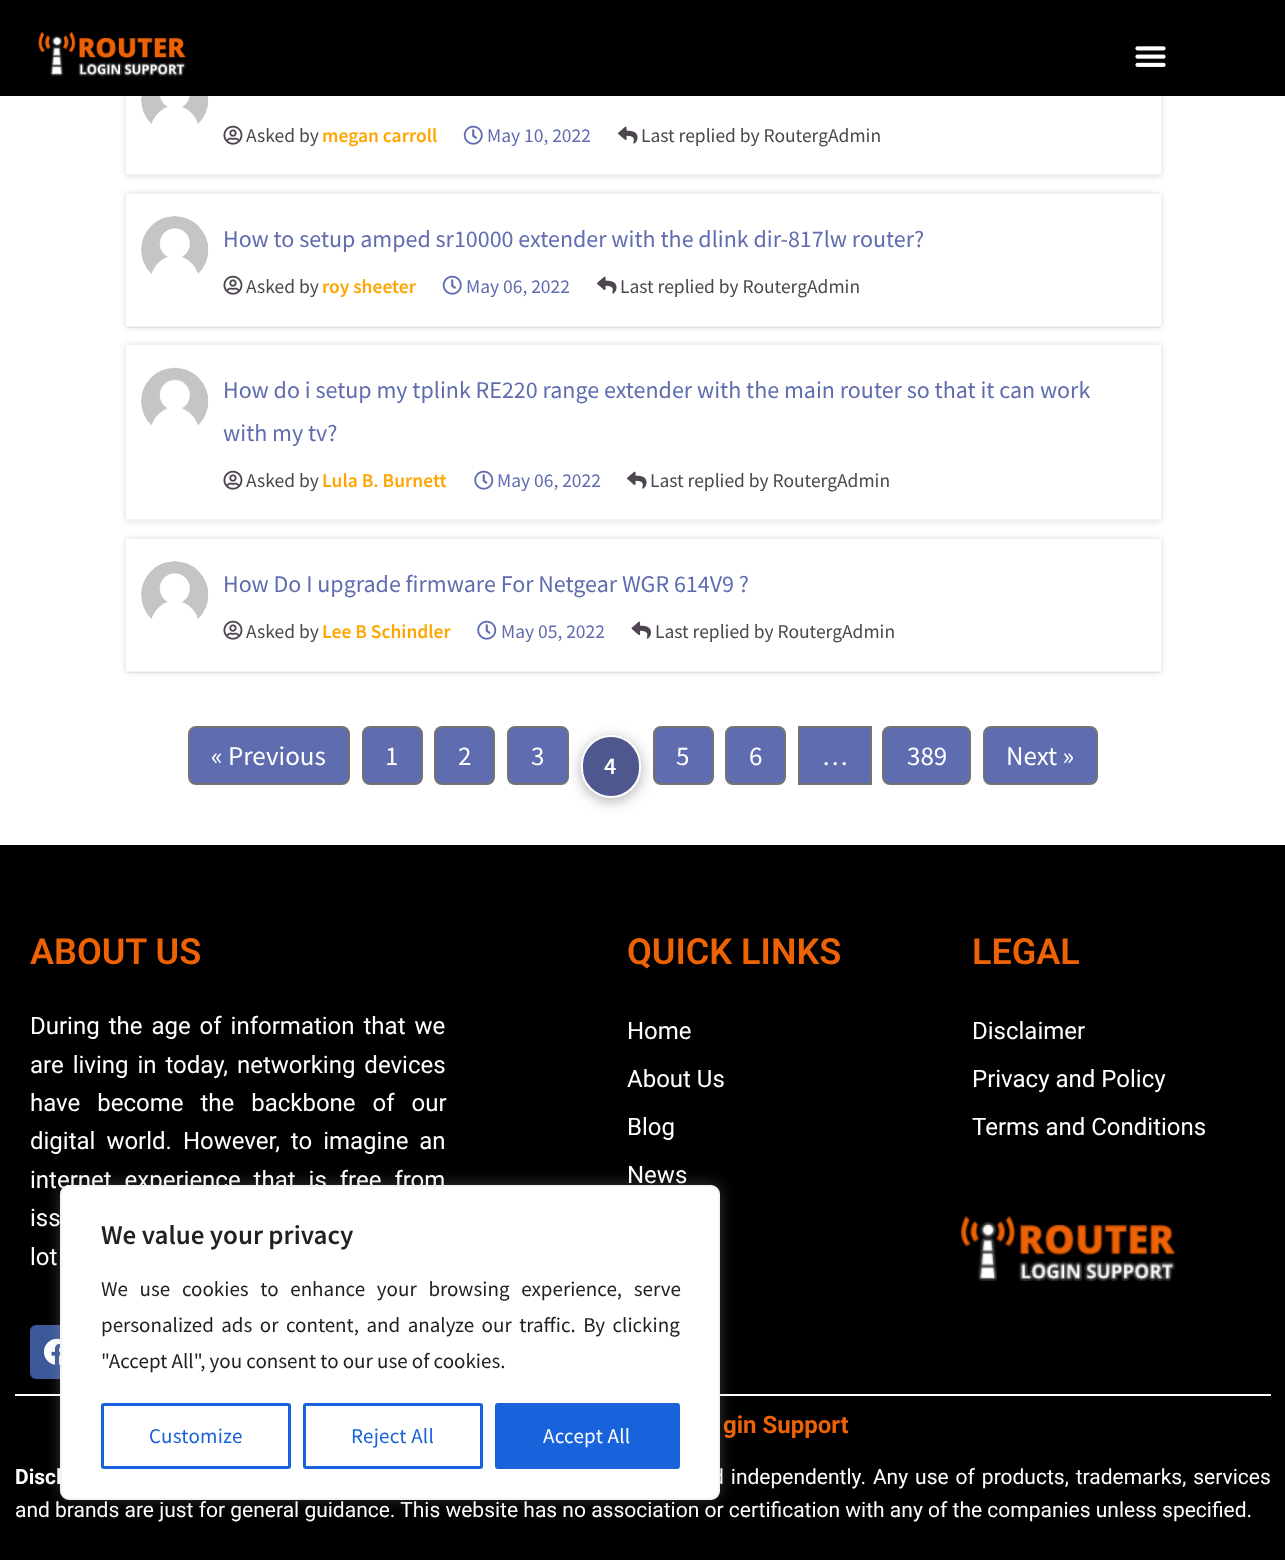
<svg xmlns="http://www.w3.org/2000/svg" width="1285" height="1560">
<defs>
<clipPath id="clip1"><path d="M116 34h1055v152h-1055zm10 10h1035v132h-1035z" clip-rule="evenodd"/></clipPath>
<clipPath id="clip2"><path d="M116 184h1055v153h-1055zm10 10h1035v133h-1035z" clip-rule="evenodd"/></clipPath>
<clipPath id="clip3"><path d="M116 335h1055v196h-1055zm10 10h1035v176h-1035z" clip-rule="evenodd"/></clipPath>
<clipPath id="clip4"><path d="M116 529h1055v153h-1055zm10 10h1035v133h-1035z" clip-rule="evenodd"/></clipPath>
</defs>
<rect width="100%" height="100%" fill="#fff"/>
<g clip-path="url(#clip1)">
<rect x="126" y="44" width="1035" height="132" fill="#33333330" filter="blur(3px)"/>
</g>
<rect width="1285" height="96" fill="#000"/>
<image x="38" y="31" width="148" height="46" href="media/1.png"/>
<image x="1135" y="46" width="31" height="21" href="media/2.png"/>
<rect x="126" y="174" width="1035" height="2" fill="#0000000d"/>
<image x="141" y="96" width="68" height="28" href="media/3.png"/>
<image x="223" y="125" width="20" height="20" href="media/4.png"/>
<text x="246" y="142" style="font-family:Source Sans Pro;font-size:19.5px;fill:#4d464f">Asked by</text>
<text x="322" y="142" style="font-family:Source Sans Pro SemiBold;font-size:19.5px;font-weight:600;fill:#ffa500">megan carroll</text>
<image x="463" y="125" width="20" height="20" href="media/5.png"/>
<text x="487" y="142" style="font-family:Source Sans Pro;font-size:19.5px;fill:#5f6caf">May 10, 2022</text>
<image x="618" y="126" width="20" height="18" href="media/6.png"/>
<text x="641" y="142" style="font-family:Source Sans Pro;font-size:19.5px;fill:#4d464f">Last replied by RoutergAdmin</text>
<g clip-path="url(#clip2)">
<rect x="126" y="194" width="1035" height="133" fill="#33333330" filter="blur(3px)"/>
</g>
<rect x="126" y="326" width="1035" height="2" fill="#0000000d"/>
<image x="141" y="216" width="68" height="58" href="media/7.png"/>
<text x="223" y="247" style="font-family:Source Sans Pro;font-size:24px;fill:#5f6caf">How to setup amped sr10000 extender with the dlink dir-817lw router?</text>
<image x="223" y="275" width="20" height="20" href="media/4.png"/>
<text x="246" y="293" style="font-family:Source Sans Pro;font-size:19.5px;fill:#4d464f">Asked by</text>
<text x="322" y="293" style="font-family:Source Sans Pro SemiBold;font-size:19.5px;font-weight:600;fill:#ffa500">roy sheeter</text>
<image x="442" y="275" width="20" height="20" href="media/5.png"/>
<text x="466" y="293" style="font-family:Source Sans Pro;font-size:19.5px;fill:#5f6caf">May 06, 2022</text>
<image x="597" y="276" width="20" height="18" href="media/6.png"/>
<text x="620" y="293" style="font-family:Source Sans Pro;font-size:19.5px;fill:#4d464f">Last replied by RoutergAdmin</text>
<g clip-path="url(#clip3)">
<rect x="126" y="345" width="1035" height="176" fill="#33333330" filter="blur(3px)"/>
</g>
<rect x="126" y="519" width="1035" height="2" fill="#0000000d"/>
<image x="141" y="367" width="68" height="59" href="media/8.png"/>
<text x="223" y="398" style="font-family:Source Sans Pro;font-size:24px;fill:#5f6caf">How do i setup my tplink RE220 range extender with the main router so that it can work</text>
<text x="223" y="441" style="font-family:Source Sans Pro;font-size:24px;fill:#5f6caf">with my tv?</text>
<image x="223" y="470" width="20" height="20" href="media/4.png"/>
<text x="246" y="487" style="font-family:Source Sans Pro;font-size:19.5px;fill:#4d464f">Asked by</text>
<text x="322" y="487" style="font-family:Source Sans Pro SemiBold;font-size:19.5px;font-weight:600;fill:#ffa500">Lula B. Burnett</text>
<image x="474" y="470" width="20" height="20" href="media/9.png"/>
<text x="497" y="487" style="font-family:Source Sans Pro;font-size:19.5px;fill:#5f6caf">May 06, 2022</text>
<image x="627" y="471" width="20" height="18" href="media/6.png"/>
<text x="650" y="487" style="font-family:Source Sans Pro;font-size:19.5px;fill:#4d464f">Last replied by RoutergAdmin</text>
<g clip-path="url(#clip4)">
<rect x="126" y="539" width="1035" height="133" fill="#33333330" filter="blur(3px)"/>
</g>
<rect x="126" y="671" width="1035" height="2" fill="#0000000d"/>
<image x="141" y="561" width="68" height="58" href="media/7.png"/>
<text x="223" y="592" style="font-family:Source Sans Pro;font-size:24px;fill:#5f6caf">How Do I upgrade firmware For Netgear WGR 614V9 ?</text>
<image x="223" y="620" width="20" height="20" href="media/4.png"/>
<text x="246" y="638" style="font-family:Source Sans Pro;font-size:19.5px;fill:#4d464f">Asked by</text>
<text x="322" y="638" style="font-family:Source Sans Pro SemiBold;font-size:19.5px;font-weight:600;fill:#ffa500">Lee B Schindler</text>
<image x="477" y="620" width="20" height="20" href="media/9.png"/>
<text x="501" y="638" style="font-family:Source Sans Pro;font-size:19.5px;fill:#5f6caf">May 05, 2022</text>
<image x="631" y="621" width="20" height="18" href="media/10.png"/>
<text x="655" y="638" style="font-family:Source Sans Pro;font-size:19.5px;fill:#4d464f">Last replied by RoutergAdmin</text>
<rect x="189" y="727" width="160" height="57" rx="7" fill="#5f6caf" stroke="#737373" stroke-width="2"/>
<text x="211" y="765" style="font-family:Source Sans Pro;font-size:27px;fill:#fff">« Previous</text>
<rect x="363" y="727" width="59" height="57" rx="7" fill="#5f6caf" stroke="#737373" stroke-width="2"/>
<text x="385" y="765" style="font-family:Source Sans Pro;font-size:27px;fill:#fff">1</text>
<rect x="435" y="727" width="59" height="57" rx="7" fill="#5f6caf" stroke="#737373" stroke-width="2"/>
<text x="458" y="765" style="font-family:Source Sans Pro;font-size:27px;fill:#fff">2</text>
<rect x="508" y="727" width="60" height="57" rx="7" fill="#5f6caf" stroke="#737373" stroke-width="2"/>
<text x="531" y="765" style="font-family:Source Sans Pro;font-size:27px;fill:#fff">3</text>
<rect x="654" y="727" width="59" height="57" rx="7" fill="#5f6caf" stroke="#737373" stroke-width="2"/>
<rect x="581" y="738" width="60" height="63" rx="30" fill="#33333361" filter="blur(7px)"/>
<rect x="582" y="736" width="58" height="61" rx="29" fill="#4e588e" stroke="#fff" stroke-width="2"/>
<text x="604" y="774" style="font-family:Source Sans Pro SemiBold;font-size:24px;font-weight:600;letter-spacing:0.25px;fill:#fff">4</text>
<text x="676" y="765" style="font-family:Source Sans Pro;font-size:27px;fill:#fff">5</text>
<rect x="726" y="727" width="59" height="57" rx="7" fill="#5f6caf" stroke="#737373" stroke-width="2"/>
<text x="749" y="765" style="font-family:Source Sans Pro;font-size:27px;fill:#fff">6</text>
<rect x="799" y="727" width="72" height="57" fill="#5f6caf" stroke="#737373" stroke-width="2"/>
<text x="822" y="765" style="font-family:Source Sans Pro;font-size:27px;fill:#fff">…</text>
<rect x="883" y="727" width="87" height="57" rx="7" fill="#5f6caf" stroke="#737373" stroke-width="2"/>
<text x="907" y="765" style="font-family:Source Sans Pro;font-size:27px;fill:#fff">389</text>
<rect x="984" y="727" width="113" height="57" rx="7" fill="#5f6caf" stroke="#737373" stroke-width="2"/>
<text x="1006" y="765" style="font-family:Source Sans Pro;font-size:27px;fill:#fff">Next »</text>
<rect y="845" width="1285" height="715" fill="#000"/>
<text x="30" y="964" style="font-family:Roboto;font-size:36px;font-weight:600;fill:#ed6205">ABOUT US</text>
<text x="30" y="1034" word-spacing="3" style="font-family:Roboto;font-size:24px;fill:#fff">During the age of information that we</text>
<text x="30" y="1073" word-spacing="3" style="font-family:Roboto;font-size:24px;fill:#fff">are living in today, networking devices</text>
<text x="30" y="1111" word-spacing="11" style="font-family:Roboto;font-size:24px;fill:#fff">have become the backbone of our</text>
<text x="30" y="1149" word-spacing="5" style="font-family:Roboto;font-size:24px;fill:#fff">digital world. However, to imagine an</text>
<text x="30" y="1188" word-spacing="7" style="font-family:Roboto;font-size:24px;fill:#fff">internet experience that is free from</text>
<text x="30" y="1226" word-spacing="2" style="font-family:Roboto;font-size:24px;fill:#fff">iss</text>
<text x="30" y="1265" style="font-family:Roboto;font-size:24px;fill:#fff">lot</text>
<rect x="30" y="1325" width="54" height="54" rx="6" fill="#3b5998"/>
<image x="43" y="1338" width="17" height="27" href="media/11.png"/>
<text x="627" y="964" style="font-family:Roboto;font-size:36px;font-weight:600;fill:#ed6205">QUICK LINKS</text>
<text x="627" y="1039" style="font-family:Roboto;font-size:24px;fill:#fff">Home</text>
<text x="627" y="1087" style="font-family:Roboto;font-size:24px;fill:#fff">About Us</text>
<text x="627" y="1135" style="font-family:Roboto;font-size:24px;fill:#fff">Blog</text>
<text x="627" y="1183" style="font-family:Roboto;font-size:24px;fill:#fff">News</text>
<text x="972" y="964" style="font-family:Roboto;font-size:36px;font-weight:600;fill:#ed6205">LEGAL</text>
<text x="972" y="1039" style="font-family:Roboto;font-size:24px;fill:#fff">Disclaimer</text>
<text x="972" y="1087" style="font-family:Roboto;font-size:24px;fill:#fff">Privacy and Policy</text>
<text x="972" y="1135" style="font-family:Roboto;font-size:24px;fill:#fff">Terms and Conditions</text>
<image x="961" y="1216" width="215" height="66" href="media/12.png"/>
<rect x="15" y="1394" width="1256" height="2" fill="#fff"/>
<text x="723" y="1433" style="font-family:Roboto;font-size:24px;font-weight:bold;fill:#ed6205">gin Support</text>
<text x="15" y="1484" style="font-family:Roboto;font-size:21px;font-weight:bold;fill:#fff">Discl</text>
<text x="712" y="1484" word-spacing="1.75" style="font-family:Roboto;font-size:21px;fill:#fff">d independently. Any use of products, trademarks, services</text>
<text x="15" y="1517" style="font-family:Roboto;font-size:21px;fill:#fff">and brands are just for general guidance. This website has no association or certification with any of the companies unless specified.</text>
<rect x="60" y="1184" width="660" height="315" rx="9" fill="#acabab4d" filter="blur(7.5px)"/>
<rect x="61" y="1186" width="658" height="313" rx="8" fill="#fff" stroke="#f4f4f4" stroke-width="2"/>
<text x="101" y="1244" style="font-family:Source Sans Pro SemiBold;font-size:27px;font-weight:600;fill:#212121">We value your privacy</text>
<text x="101" y="1296" word-spacing="7.5" style="font-family:Source Sans Pro;font-size:21px;fill:#212121">We use cookies to enhance your browsing experience, serve</text>
<text x="101" y="1332" word-spacing="3.25" style="font-family:Source Sans Pro;font-size:21px;fill:#212121">personalized ads or content, and analyze our traffic. By clicking</text>
<text x="101" y="1368" style="font-family:Source Sans Pro;font-size:21px;fill:#212121">"Accept All", you consent to our use of cookies.</text>
<rect x="102.5" y="1404.5" width="187" height="63" rx="1.5" fill="none" stroke="#1863dc" stroke-width="3"/>
<text x="149" y="1443" style="font-family:Source Sans Pro;font-size:21px;letter-spacing:0.25px;fill:#1863dc">Customize</text>
<rect x="304.5" y="1404.5" width="177" height="63" rx="1.5" fill="none" stroke="#1863dc" stroke-width="3"/>
<text x="351" y="1443" style="font-family:Source Sans Pro;font-size:21px;letter-spacing:0.25px;fill:#1863dc">Reject All</text>
<rect x="496.5" y="1404.5" width="182" height="63" rx="1.5" fill="#1863dc" stroke="#1863dc" stroke-width="3"/>
<text x="543" y="1443" style="font-family:Source Sans Pro;font-size:21px;letter-spacing:0.25px;fill:#fff">Accept All</text>
</svg>
